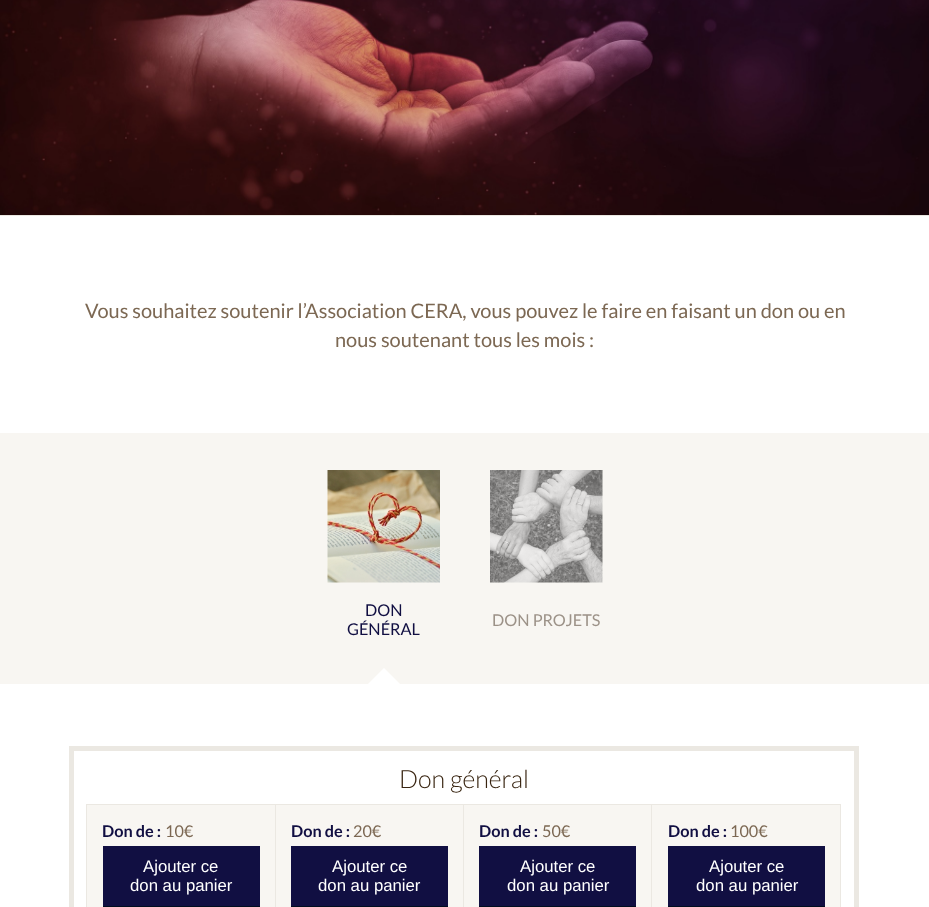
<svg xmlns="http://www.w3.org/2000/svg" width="929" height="907">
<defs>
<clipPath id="clip1"><rect x="328" y="668" width="112" height="18"/></clipPath>
</defs>
<rect width="100%" height="100%" fill="#fff"/>
<image x="0" y="0" width="929" height="215" href="media/1.png"/>
<rect y="215" width="929" height="1" fill="#ebe8e2"/>
<text x="85" y="318" style="font-family:Lato;font-size:20px;fill:#7c6853">Vous souhaitez soutenir l’Association CERA, vous pouvez le faire en faisant un don ou en</text>
<text x="335" y="347" style="font-family:Lato;font-size:20px;fill:#7c6853">nous soutenant tous les mois :</text>
<rect y="433" width="929" height="251" fill="#f8f6f2"/>
<image x="327" y="470" width="113" height="113" href="media/2.png"/>
<text x="365" y="616" style="font-family:Lato;font-size:16.25px;fill:#110f42">DON</text>
<text x="347" y="635" style="font-family:Lato;font-size:16.25px;fill:#110f42">GÉNÉRAL</text>
<g clip-path="url(#clip1)">
<path d="M384 668l44 44l-44 44l-44-44z" fill="#fff"/>
</g>
<image x="490" y="470" width="113" height="113" href="media/3.png"/>
<text x="492" y="626" style="font-family:Lato;font-size:16.25px;fill:#9c9288">DON PROJETS</text>
<rect x="71.5" y="748.5" width="785" height="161" fill="none" stroke="#ebe8e2" stroke-width="5"/>
<text x="399" y="788" style="font-family:Lato;font-size:25px;font-weight:300;fill:#382410">Don général</text>
<rect x="87" y="805" width="753" height="102" fill="#f8f6f2"/>
<rect x="86" y="804" width="755" height="1" fill="#ebe8e2"/>
<rect x="275" y="804" width="1" height="103" fill="#ebe8e2"/>
<rect x="86" y="804" width="1" height="103" fill="#ebe8e2"/>
<text x="102" y="837" style="font-family:Lato;font-size:16.25px;font-weight:bold;fill:#110f42">Don de :</text>
<text x="165" y="837" style="font-family:Lato;font-size:16.25px;fill:#7c6853">10€</text>
<rect x="103" y="846" width="157" height="60" fill="#110f42"/>
<rect x="103" y="906" width="157" height="1" fill="#000d20"/>
<text x="143" y="872" style="font-family:Liberation Sans;font-size:16.75px;fill:#fff">Ajouter ce</text>
<text x="130" y="891" style="font-family:Liberation Sans;font-size:16.75px;fill:#fff">don au panier</text>
<rect x="463" y="804" width="1" height="103" fill="#ebe8e2"/>
<text x="291" y="837" style="font-family:Lato;font-size:16.25px;font-weight:bold;fill:#110f42">Don de :</text>
<text x="353" y="837" style="font-family:Lato;font-size:16.25px;fill:#7c6853">20€</text>
<rect x="291" y="846" width="157" height="60" fill="#110f42"/>
<rect x="291" y="906" width="157" height="1" fill="#000d20"/>
<text x="332" y="872" style="font-family:Liberation Sans;font-size:16.75px;fill:#fff">Ajouter ce</text>
<text x="318" y="891" style="font-family:Liberation Sans;font-size:16.75px;fill:#fff">don au panier</text>
<rect x="651" y="804" width="1" height="103" fill="#ebe8e2"/>
<text x="479" y="837" style="font-family:Lato;font-size:16.25px;font-weight:bold;fill:#110f42">Don de :</text>
<text x="542" y="837" style="font-family:Lato;font-size:16.25px;fill:#7c6853">50€</text>
<rect x="479" y="846" width="157" height="60" fill="#110f42"/>
<rect x="479" y="906" width="157" height="1" fill="#000d20"/>
<text x="520" y="872" style="font-family:Liberation Sans;font-size:16.75px;fill:#fff">Ajouter ce</text>
<text x="507" y="891" style="font-family:Liberation Sans;font-size:16.75px;fill:#fff">don au panier</text>
<rect x="840" y="804" width="1" height="103" fill="#ebe8e2"/>
<text x="668" y="837" style="font-family:Lato;font-size:16.25px;font-weight:bold;fill:#110f42">Don de :</text>
<text x="730" y="837" style="font-family:Lato;font-size:16.25px;fill:#7c6853">100€</text>
<rect x="668" y="846" width="157" height="60" fill="#110f42"/>
<rect x="668" y="906" width="157" height="1" fill="#000d20"/>
<text x="709" y="872" style="font-family:Liberation Sans;font-size:16.75px;fill:#fff">Ajouter ce</text>
<text x="696" y="891" style="font-family:Liberation Sans;font-size:16.75px;fill:#fff">don au panier</text>
</svg>
